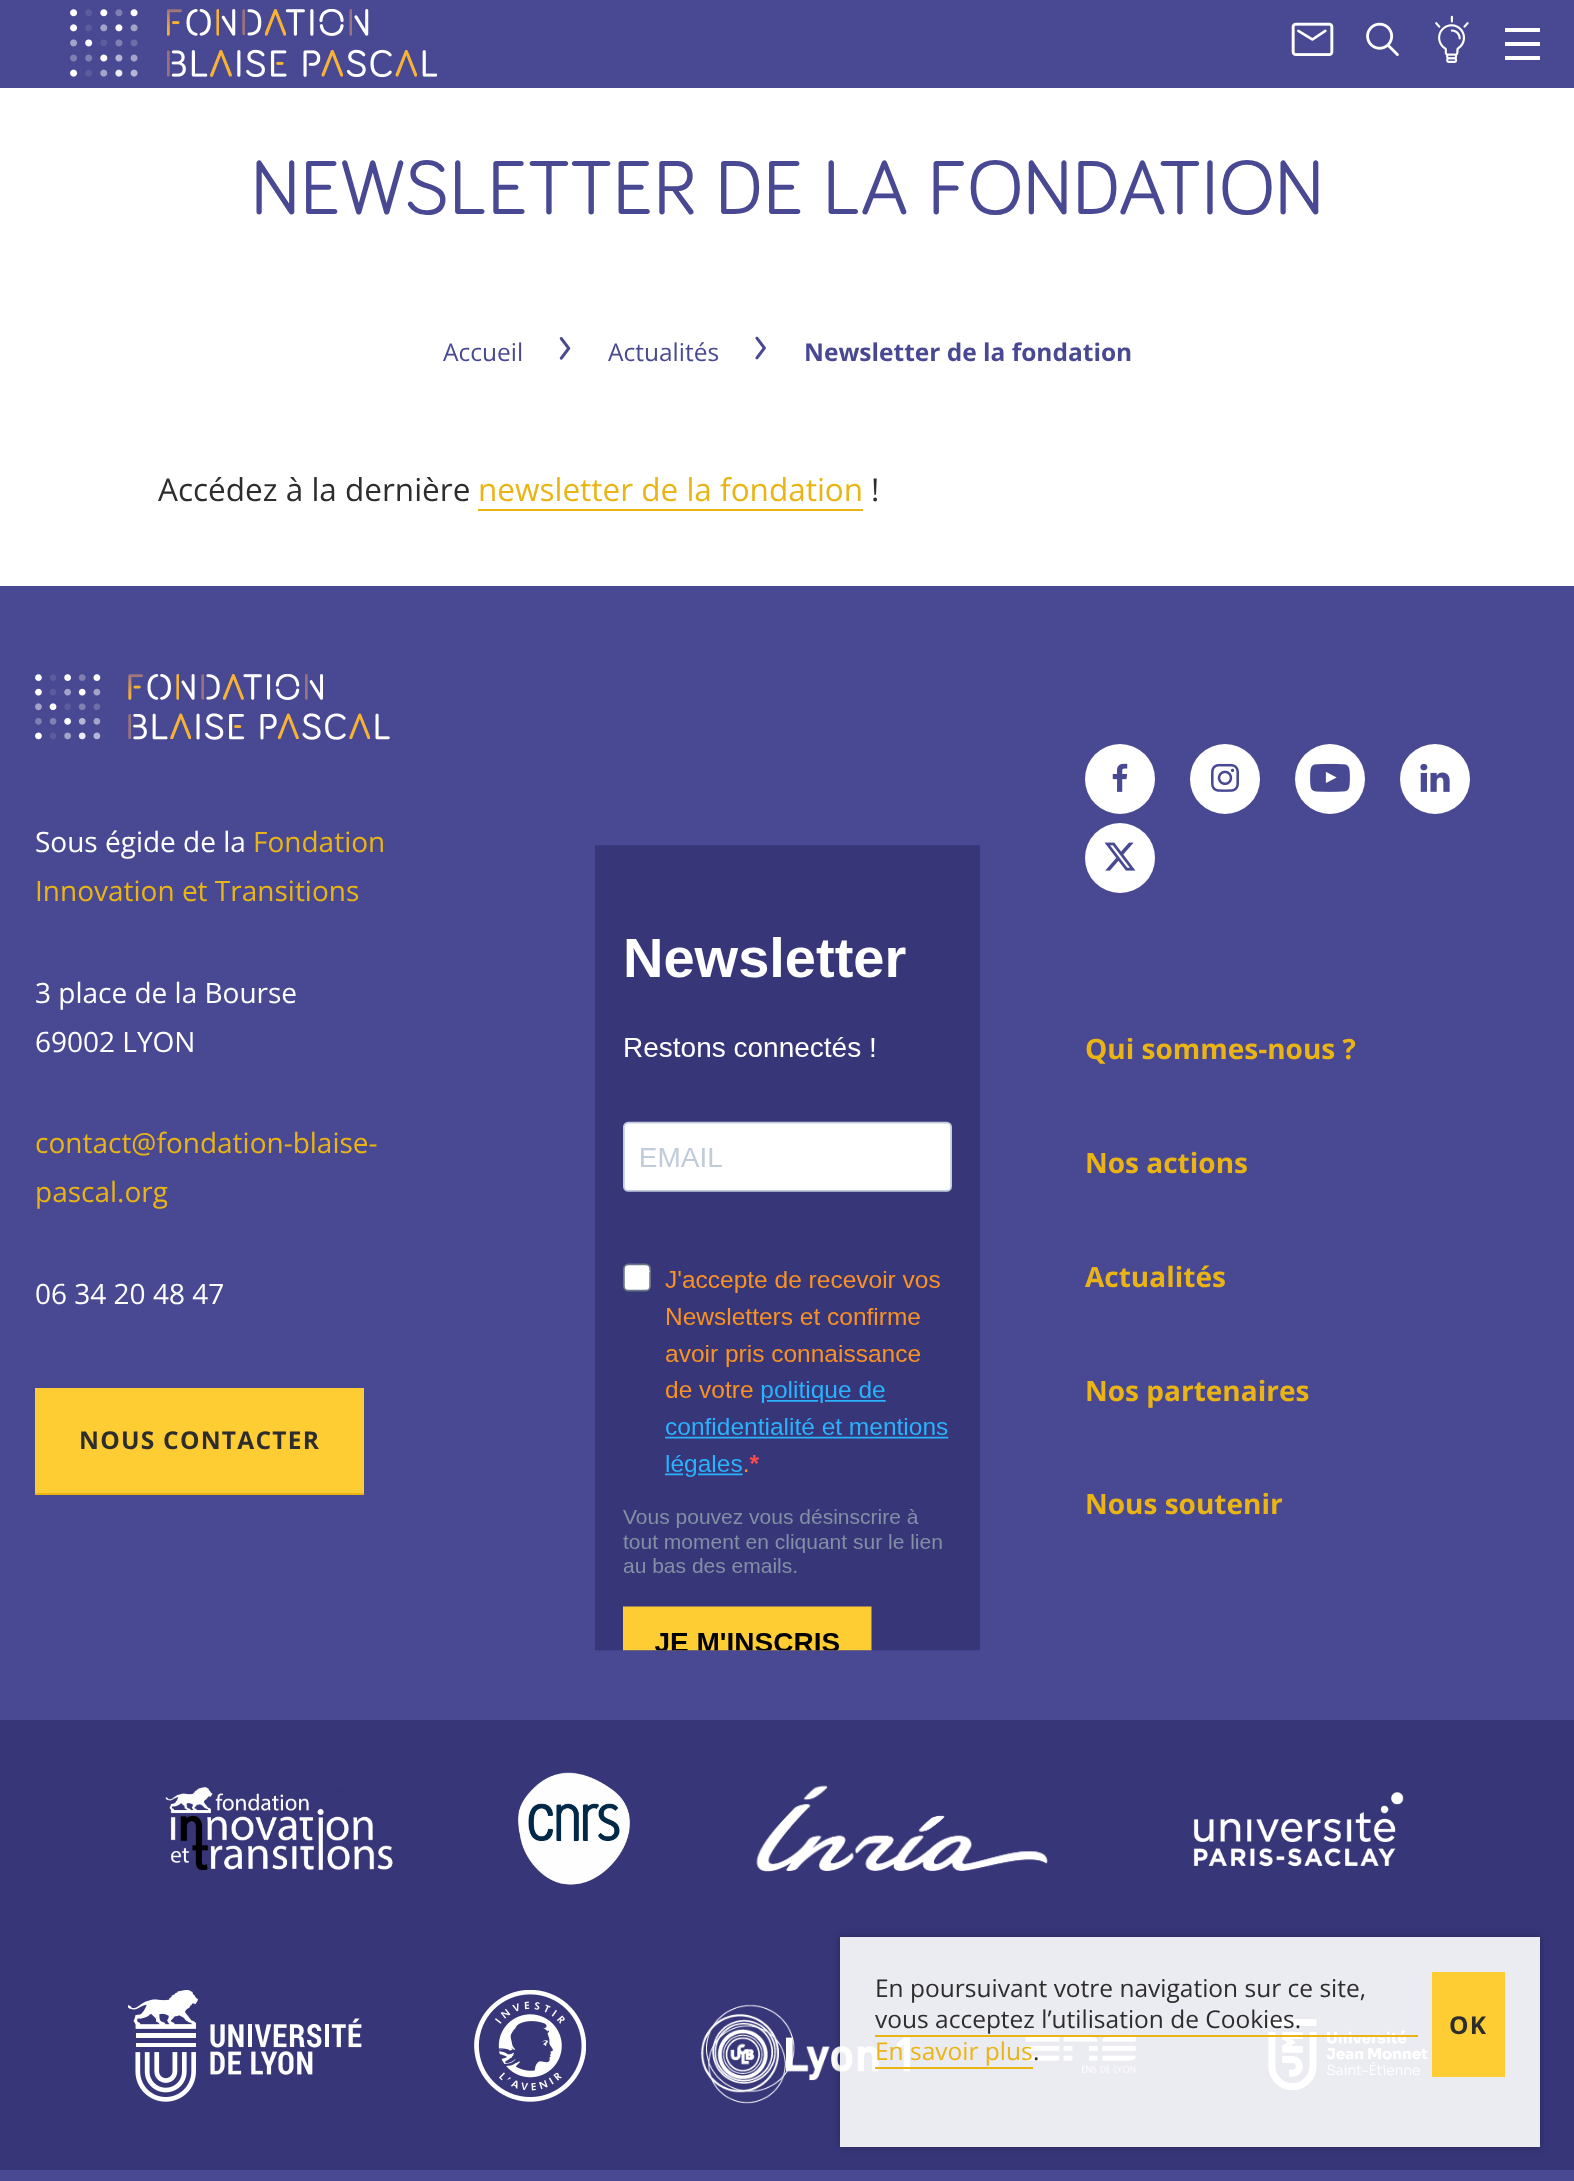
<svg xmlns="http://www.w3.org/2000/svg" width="1574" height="2181">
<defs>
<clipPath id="clip1"><path d="M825 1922h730v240h-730zm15 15h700v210h-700z" clip-rule="evenodd"/></clipPath>
</defs>
<rect width="100%" height="100%" fill="#fff"/>
<rect width="1574" height="88" fill="#494993"/>
<image x="70" y="9" width="367" height="69" href="media/1.png"/>
<image x="1291" y="22" width="43" height="34" href="media/2.png"/>
<image x="1366" y="22" width="33" height="34" href="media/3.png"/>
<image x="1435" y="15" width="34" height="48" href="media/4.png"/>
<rect x="1505" y="42" width="35" height="4" fill="#fff"/>
<rect x="1505" y="28" width="35" height="4" fill="#fff"/>
<rect x="1505" y="56" width="35" height="4" fill="#fff"/>
<text x="251" y="214" style="font-family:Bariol;font-size:78.75px;fill:#494993">NEWSLETTER DE LA FONDATION</text>
<text x="443" y="361" style="font-family:Open Sans;font-size:24.5px;fill:#494993">Accueil</text>
<image x="559" y="337" width="12" height="23" href="media/5.png"/>
<text x="608" y="361" style="font-family:Open Sans;font-size:24.5px;fill:#494993">Actualités</text>
<image x="755" y="336" width="11" height="24" href="media/6.png"/>
<text x="804" y="361" style="font-family:Open Sans;font-size:24.5px;font-weight:bold;fill:#494993">Newsletter de la fondation</text>
<text x="158" y="501" style="font-family:Open Sans;font-size:31.5px;fill:#2d2d2d">Accédez à la dernière</text>
<text x="478" y="501" style="font-family:Open Sans;font-size:31.5px;fill:#eab514">newsletter de la fondation</text>
<rect x="478" y="509" width="385" height="2" fill="#eab514"/>
<text x="871" y="501" style="font-family:Open Sans;font-size:31.5px;fill:#2d2d2d">!</text>
<rect y="586" width="1574" height="1595" fill="#494993"/>
<image x="35" y="674" width="355" height="66" href="media/7.png"/>
<text x="35" y="852" style="font-family:Open Sans;font-size:28px;fill:#fff">Sous égide de la</text>
<text x="253" y="852" style="font-family:Open Sans;font-size:28px;fill:#eab514">Fondation</text>
<text x="35" y="901" style="font-family:Open Sans;font-size:28px;fill:#eab514">Innovation et Transitions</text>
<text x="35" y="1003" style="font-family:Open Sans;font-size:28px;fill:#fff">3 place de la Bourse</text>
<text x="35" y="1052" style="font-family:Open Sans;font-size:28px;fill:#fff">69002 LYON</text>
<text x="35" y="1153" style="font-family:Open Sans;font-size:28px;fill:#eab514">contact@fondation-blaise-</text>
<text x="35" y="1202" style="font-family:Open Sans;font-size:28px;fill:#eab514">pascal.org</text>
<text x="35" y="1304" style="font-family:Open Sans;font-size:28px;fill:#fff">06 34 20 48 47</text>
<rect x="35" y="1388" width="329" height="105" fill="#fecc33"/>
<rect x="35" y="1493" width="329" height="2" fill="#eab514"/>
<text x="79" y="1449" style="font-family:Open Sans;font-size:24.5px;font-weight:bold;letter-spacing:1.25px;fill:#2d2d2d">NOUS CONTACTER</text>
<image x="595" y="845" width="385" height="806" href="media/8.png"/>
<circle cx="1120" cy="779" r="35" fill="#fff"/>
<image x="1112" y="763" width="16" height="29" href="media/9.png"/>
<circle cx="1225" cy="779" r="35" fill="#fff"/>
<image x="1211" y="763" width="28" height="29" href="media/10.png"/>
<circle cx="1330" cy="779" r="35" fill="#fff"/>
<image x="1310" y="763" width="40" height="29" href="media/11.png"/>
<circle cx="1435" cy="779" r="35" fill="#fff"/>
<image x="1420" y="763" width="30" height="29" href="media/12.png"/>
<circle cx="1120" cy="858" r="35" fill="#fff"/>
<image x="1104" y="842" width="32" height="29" href="media/13.png"/>
<text x="1085" y="1059" style="font-family:Open Sans;font-size:28px;font-weight:bold;fill:#eab514">Qui sommes-nous ?</text>
<text x="1085" y="1173" style="font-family:Open Sans;font-size:28px;font-weight:bold;fill:#eab514">Nos actions</text>
<text x="1085" y="1287" style="font-family:Open Sans;font-size:28px;font-weight:bold;fill:#eab514">Actualités</text>
<text x="1085" y="1401" style="font-family:Open Sans;font-size:28px;font-weight:bold;fill:#eab514">Nos partenaires</text>
<text x="1085" y="1514" style="font-family:Open Sans;font-size:28px;font-weight:bold;fill:#eab514">Nous soutenir</text>
<rect y="1720" width="1574" height="450" fill="#373679"/>
<image x="165" y="1786" width="228" height="85" href="media/14.png"/>
<image x="518" y="1772" width="112" height="113" href="media/15.png"/>
<image x="756" y="1785" width="292" height="87" href="media/16.png"/>
<image x="1193" y="1792" width="211" height="75" href="media/17.png"/>
<image x="128" y="1990" width="234" height="112" href="media/18.png"/>
<image x="474" y="1990" width="112" height="112" href="media/19.png"/>
<image x="700" y="2004" width="210" height="100" href="media/20.png"/>
<image x="1025" y="2037" width="111" height="37" href="media/21.png"/>
<image x="1268" y="2019" width="160" height="72" href="media/22.png"/>
<g clip-path="url(#clip1)">
<rect x="840" y="1937" width="700" height="210" fill="#00000040" filter="blur(4.5px)"/>
</g>
<rect x="840" y="1937" width="700" height="210" fill="#ffffffe6"/>
<text x="875" y="1997" style="font-family:Open Sans;font-size:24.5px;fill:#2d2d2d">En poursuivant votre navigation sur ce site,</text>
<text x="875" y="2028" style="font-family:Open Sans;font-size:24.5px;fill:#2d2d2d">vous acceptez l’utilisation de Cookies.</text>
<text x="875" y="2060" style="font-family:Open Sans;font-size:24.5px;fill:#eab514">En savoir plus</text>
<rect x="875" y="2035" width="543" height="2" fill="#eab514"/>
<rect x="875" y="2067" width="158" height="2" fill="#eab514"/>
<text x="1033" y="2060" style="font-family:Open Sans;font-size:24.5px;fill:#2d2d2d">.</text>
<rect x="1432" y="1972" width="73" height="105" fill="#fecc33"/>
<text x="1449" y="2034" style="font-family:Open Sans;font-size:24.5px;font-weight:bold;letter-spacing:1.25px;fill:#2d2d2d">OK</text>
</svg>
